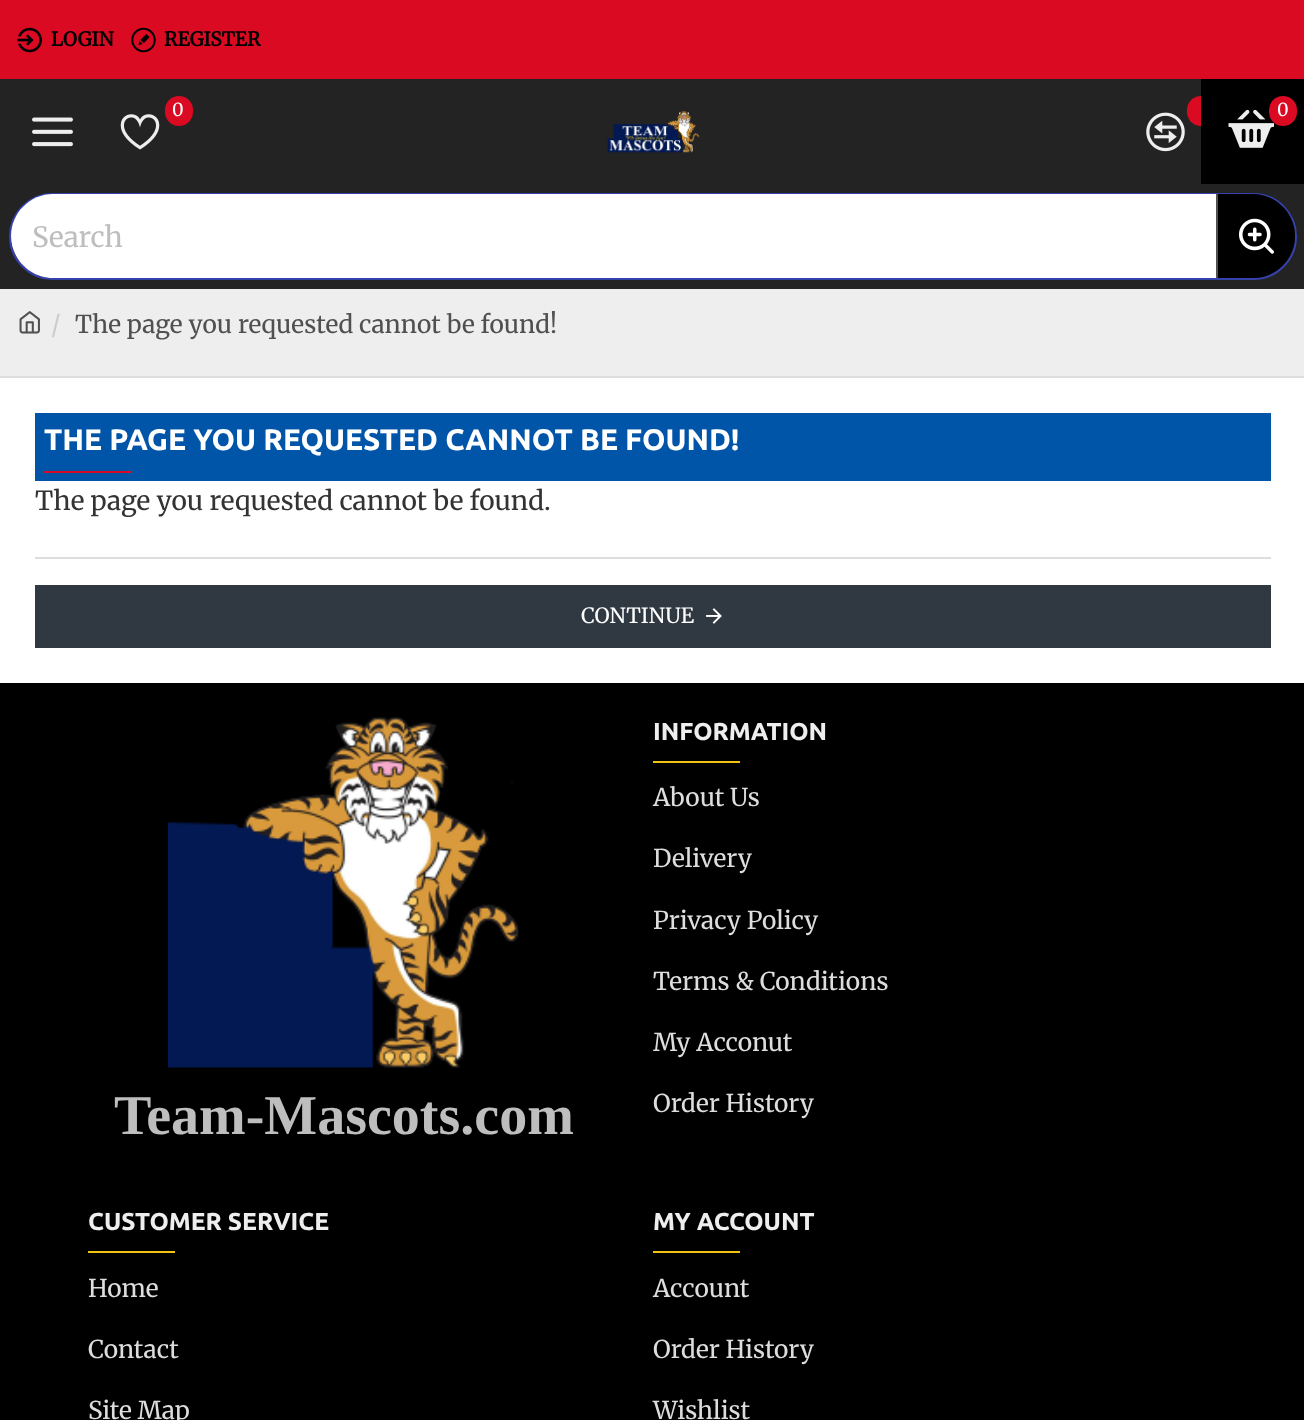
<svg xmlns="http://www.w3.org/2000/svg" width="1304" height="1420">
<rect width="100%" height="100%" fill="#fff"/>
<rect width="1304" height="79" fill="#da0a22"/>
<image x="17" y="27" width="25" height="26" href="media/1.png"/>
<text x="51" y="46" style="font-family:Merriweather;font-size:19.25px;font-weight:bold;fill:#000">LOGIN</text>
<image x="131" y="27" width="25" height="26" href="media/2.png"/>
<text x="164" y="46" style="font-family:Merriweather;font-size:19.25px;font-weight:bold;fill:#000">REGISTER</text>
<rect y="79" width="1201" height="105" fill="#232323"/>
<rect x="165" y="96" width="28" height="30" rx="14" fill="#da0a22"/>
<text x="172" y="116" style="font-family:Merriweather;font-size:18px;font-weight:300;fill:#fff">0</text>
<image x="120" y="114" width="40" height="36" href="media/3.png"/>
<image x="1146" y="112" width="39" height="40" href="media/4.png"/>
<rect x="1187" y="96" width="28" height="30" rx="14" fill="#da0a22"/>
<rect x="1201" y="79" width="103" height="105" fill="#000"/>
<image x="1228" y="109" width="46" height="39" href="media/5.png"/>
<rect x="1269" y="96" width="28" height="30" rx="14" fill="#da0a22"/>
<text x="1277" y="116" style="font-family:Merriweather;font-size:18px;font-weight:300;fill:#fff">0</text>
<image x="32" y="117" width="41" height="30" href="media/6.png"/>
<image x="607" y="111" width="93" height="42" href="media/7.png"/>
<rect y="184" width="1304" height="105" fill="#232323"/>
<rect x="10" y="194" width="1286" height="85" rx="42.5" fill="none" stroke="#3542ae" stroke-width="2"/>
<path d="M53 194h1163v84h-1163c-23 0-42-19-42-42c0-23 19-42 42-42z" fill="#fff"/>
<text x="32" y="247" style="font-family:Merriweather;font-size:28px;font-weight:300;fill:#bebebe">Search</text>
<path d="M1218 194h35c23 0 42 19 42 42c0 23-19 42-42 42h-35z" fill="#000"/>
<rect x="1216" y="194" width="2" height="84" fill="#505050"/>
<image x="1239" y="218" width="35" height="36" href="media/8.png"/>
<rect y="289" width="1304" height="87" fill="#eee"/>
<rect y="376" width="1304" height="2" fill="#ddd"/>
<image x="19" y="311" width="21" height="23" href="media/9.png"/>
<text x="51" y="333" style="font-family:Merriweather;font-size:24.5px;font-weight:300;fill:#ccc">/</text>
<text x="75" y="333" style="font-family:Merriweather;font-size:24.5px;font-weight:300;fill:#505050">The page you requested cannot be found!</text>
<rect x="35" y="413" width="1236" height="68" fill="#0055a9"/>
<text x="44" y="450" style="font-family:Ubuntu;font-size:29.75px;font-weight:bold;fill:#fff">THE PAGE YOU REQUESTED CANNOT BE FOUND!</text>
<rect x="44" y="471" width="87" height="2" fill="#da0a22"/>
<text x="35" y="510" style="font-family:Merriweather;font-size:26.25px;font-weight:300;fill:#333">The page you requested cannot be found.</text>
<rect x="35" y="557" width="1236" height="2" fill="#ddd"/>
<rect x="35" y="585" width="1236" height="63" fill="#303841"/>
<text x="581" y="623" style="font-family:Merriweather;font-size:21px;font-weight:300;fill:#fff">CONTINUE</text>
<image x="706" y="608" width="16" height="16" href="media/10.png"/>
<rect y="683" width="1304" height="737" fill="#000"/>
<image x="168" y="717" width="351" height="351" href="media/11.png"/>
<text x="114" y="1134" style="font-family:Liberation Serif;font-size:56px;font-weight:bold;fill:#bebebe">Team-Mascots.com</text>
<text x="653" y="740" style="font-family:Ubuntu;font-size:24.5px;font-weight:bold;fill:#eee">INFORMATION</text>
<rect x="653" y="761" width="87" height="2" fill="#f1c40f"/>
<text x="653" y="806" style="font-family:Merriweather;font-size:24.5px;font-weight:300;fill:#ddd">About Us</text>
<text x="653" y="867" style="font-family:Merriweather;font-size:24.5px;font-weight:300;fill:#ddd">Delivery</text>
<text x="653" y="929" style="font-family:Merriweather;font-size:24.5px;font-weight:300;fill:#ddd">Privacy Policy</text>
<text x="653" y="990" style="font-family:Merriweather;font-size:24.5px;font-weight:300;fill:#ddd">Terms &amp; Conditions</text>
<text x="653" y="1051" style="font-family:Merriweather;font-size:24.5px;font-weight:300;fill:#ddd">My Acconut</text>
<text x="653" y="1112" style="font-family:Merriweather;font-size:24.5px;font-weight:300;fill:#ddd">Order History</text>
<text x="88" y="1230" style="font-family:Ubuntu;font-size:24.5px;font-weight:bold;fill:#eee">CUSTOMER SERVICE</text>
<rect x="88" y="1251" width="87" height="2" fill="#f1c40f"/>
<text x="88" y="1297" style="font-family:Merriweather;font-size:24.5px;font-weight:300;fill:#ddd">Home</text>
<text x="88" y="1358" style="font-family:Merriweather;font-size:24.5px;font-weight:300;fill:#ddd">Contact</text>
<text x="88" y="1419" style="font-family:Merriweather;font-size:24.5px;font-weight:300;fill:#ddd">Site Map</text>
<text x="653" y="1230" style="font-family:Ubuntu;font-size:24.5px;font-weight:bold;fill:#eee">MY ACCOUNT</text>
<rect x="653" y="1251" width="87" height="2" fill="#f1c40f"/>
<text x="653" y="1297" style="font-family:Merriweather;font-size:24.5px;font-weight:300;fill:#ddd">Account</text>
<text x="653" y="1358" style="font-family:Merriweather;font-size:24.5px;font-weight:300;fill:#ddd">Order History</text>
<text x="653" y="1419" style="font-family:Merriweather;font-size:24.5px;font-weight:300;fill:#ddd">Wishlist</text>
</svg>
